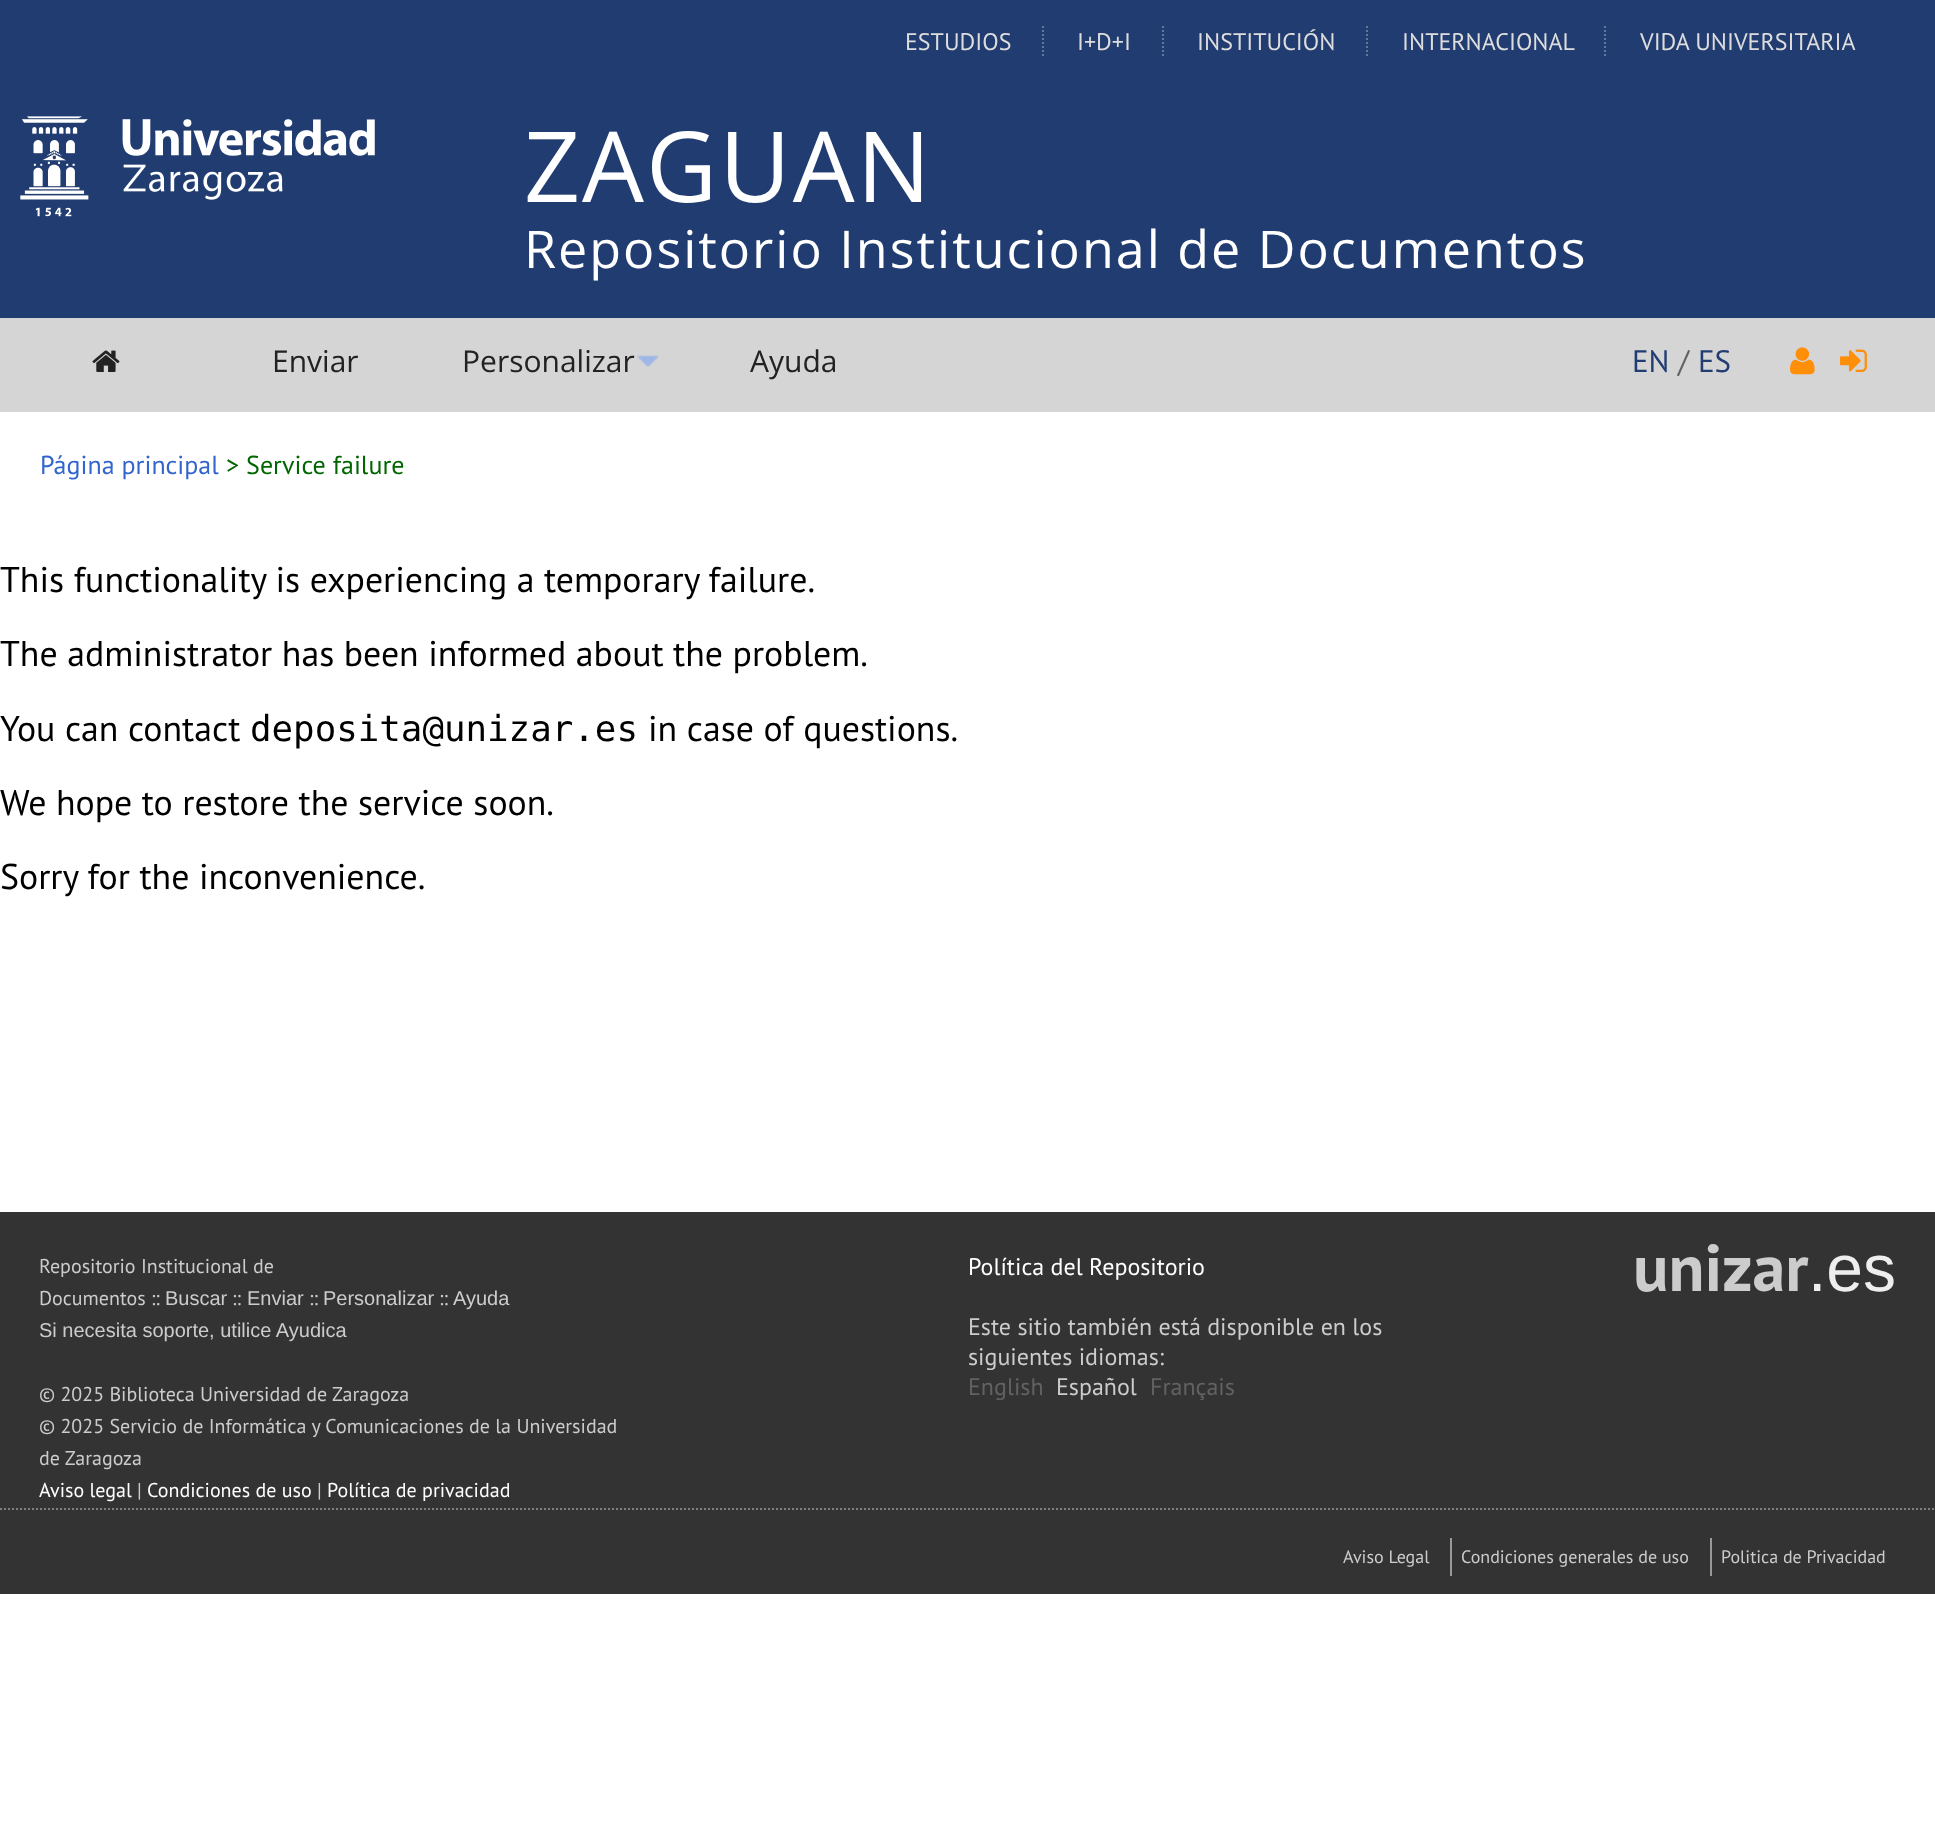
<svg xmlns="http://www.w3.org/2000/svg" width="1935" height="1822">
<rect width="100%" height="100%" fill="#fff"/>
<rect width="1935" height="318" fill="#213c70"/>
<text x="905" y="50" style="font-family:PT Sans;font-size:24px;fill:#ddd">ESTUDIOS</text>
<path d="M1043 26v30" fill="none" stroke="#64779d" stroke-width="2" stroke-dasharray="2 2"/>
<text x="1077" y="50" style="font-family:PT Sans;font-size:24px;fill:#ddd">I+D+I</text>
<path d="M1163 26v30" fill="none" stroke="#64779d" stroke-width="2" stroke-dasharray="2 2"/>
<text x="1197" y="50" style="font-family:PT Sans;font-size:24px;fill:#ddd">INSTITUCIÓN</text>
<path d="M1367 26v30" fill="none" stroke="#64779d" stroke-width="2" stroke-dasharray="2 2"/>
<text x="1402" y="50" style="font-family:PT Sans;font-size:24px;fill:#ddd">INTERNACIONAL</text>
<path d="M1605 26v30" fill="none" stroke="#64779d" stroke-width="2" stroke-dasharray="2 2"/>
<text x="1640" y="50" style="font-family:PT Sans;font-size:24px;fill:#ddd">VIDA UNIVERSITARIA</text>
<image x="20" y="116" width="355" height="101" href="media/1.png"/>
<text x="524" y="202" style="font-family:Open Sans;font-size:98px;letter-spacing:2px;fill:#fff">ZAGUAN</text>
<text x="524" y="268" style="font-family:Open Sans;font-size:52px;letter-spacing:2px;fill:#fff">Repositorio Institucional de Documentos</text>
<rect y="318" width="1935" height="94" fill="#d5d5d5"/>
<image x="92" y="350" width="28" height="22" href="media/2.png"/>
<text x="272" y="372" style="font-family:Open Sans;font-size:30px;fill:#222">Enviar</text>
<text x="462" y="372" style="font-family:Open Sans;font-size:30px;fill:#222">Personalizar</text>
<image x="637" y="355" width="21" height="12" href="media/3.png"/>
<text x="750" y="372" style="font-family:Open Sans;font-size:30px;fill:#222">Ayuda</text>
<text x="1632" y="372" style="font-family:PT Sans;font-size:31px;fill:#223d72">EN</text>
<text x="1678" y="372" style="font-family:PT Sans;font-size:31px;fill:#626262">/</text>
<text x="1698" y="372" style="font-family:PT Sans;font-size:31px;fill:#223d72">ES</text>
<image x="1790" y="347" width="25" height="28" href="media/4.png"/>
<image x="1840" y="349" width="27" height="23" href="media/5.png"/>
<text x="40" y="474" style="font-family:PT Sans;font-size:26px;fill:#36c">Página principal</text>
<text x="226" y="474" style="font-family:PT Sans;font-size:26px;fill:#060">&gt; Service failure</text>
<text x="0" y="592" style="font-family:PT Sans;font-size:35.8px;fill:#000">This functionality is experiencing a temporary failure.</text>
<text x="0" y="666" style="font-family:PT Sans;font-size:35.8px;fill:#000">The administrator has been informed about the problem.</text>
<text x="0" y="741" style="font-family:PT Sans;font-size:35.8px;fill:#000">You can contact</text>
<text x="250" y="741" style="font-family:DejaVu Sans Mono;font-size:35.8px;fill:#000">deposita@unizar.es</text>
<text x="648" y="741" style="font-family:PT Sans;font-size:35.8px;fill:#000">in case of questions.</text>
<text x="0" y="815" style="font-family:PT Sans;font-size:35.8px;fill:#000">We hope to restore the service soon.</text>
<text x="0" y="889" style="font-family:PT Sans;font-size:35.8px;fill:#000">Sorry for the inconvenience.</text>
<rect y="1212" width="1935" height="382" fill="#333"/>
<text x="39" y="1273" style="font-family:PT Sans;font-size:20px;fill:#ccc">Repositorio Institucional de</text>
<text x="39" y="1305" style="font-family:PT Sans;font-size:20px;fill:#ccc">Documentos ::</text>
<text x="165" y="1305" style="font-family:Liberation Sans;font-size:20px;fill:#ccc">Buscar</text>
<text x="232" y="1305" style="font-family:PT Sans;font-size:20px;fill:#ccc">::</text>
<text x="247" y="1305" style="font-family:Liberation Sans;font-size:20px;fill:#ccc">Enviar</text>
<text x="309" y="1305" style="font-family:PT Sans;font-size:20px;fill:#ccc">::</text>
<text x="323" y="1305" style="font-family:Liberation Sans;font-size:20px;fill:#ccc">Personalizar</text>
<text x="439" y="1305" style="font-family:PT Sans;font-size:20px;fill:#ccc">::</text>
<text x="453" y="1305" style="font-family:Liberation Sans;font-size:20px;fill:#ccc">Ayuda</text>
<text x="39" y="1337" style="font-family:Liberation Sans;font-size:20px;fill:#ccc">Si necesita soporte, utilice Ayudica</text>
<text x="39" y="1401" style="font-family:PT Sans;font-size:20px;fill:#ccc">© 2025 Biblioteca Universidad de Zaragoza</text>
<text x="39" y="1433" style="font-family:PT Sans;font-size:20px;fill:#ccc">© 2025 Servicio de Informática y Comunicaciones de la Universidad</text>
<text x="39" y="1465" style="font-family:PT Sans;font-size:20px;fill:#ccc">de Zaragoza</text>
<text x="39" y="1497" style="font-family:PT Sans;font-size:20px;fill:#fff">Aviso legal</text>
<text x="137" y="1497" style="font-family:PT Sans;font-size:20px;fill:#ccc">|</text>
<text x="147" y="1497" style="font-family:PT Sans;font-size:20px;fill:#fff">Condiciones de uso</text>
<text x="317" y="1497" style="font-family:PT Sans;font-size:20px;fill:#ccc">|</text>
<text x="327" y="1497" style="font-family:PT Sans;font-size:20px;fill:#fff">Política de privacidad</text>
<text x="968" y="1275" style="font-family:PT Sans;font-size:24px;fill:#fff">Política del Repositorio</text>
<text x="968" y="1335" style="font-family:PT Sans;font-size:24px;fill:#ccc">Este sitio también está disponible en los</text>
<text x="968" y="1365" style="font-family:PT Sans;font-size:24px;fill:#ccc">siguientes idiomas:</text>
<text x="968" y="1395" style="font-family:PT Sans;font-size:24px;fill:#626262">English</text>
<text x="1056" y="1395" style="font-family:PT Sans;font-size:24px;fill:#ccc">Español</text>
<text x="1150" y="1395" style="font-family:PT Sans;font-size:24px;fill:#626262">Français</text>
<text x="1633" y="1291" style="font-family:PT Sans;font-size:66px;font-weight:bold;fill:#ccc">unizar</text>
<text x="1808" y="1291" style="font-family:Liberation Sans;font-size:66px;fill:#eee">.es</text>
<path d="M-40 1509h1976" fill="none" stroke="#808080" stroke-width="2" stroke-dasharray="2 2"/>
<text x="1343" y="1563" style="font-family:PT Sans;font-size:18px;fill:#ccc">Aviso Legal</text>
<rect x="1450" y="1538" width="2" height="38" fill="#999"/>
<text x="1461" y="1563" style="font-family:PT Sans;font-size:18px;fill:#ccc">Condiciones generales de uso</text>
<rect x="1710" y="1538" width="2" height="38" fill="#999"/>
<text x="1721" y="1563" style="font-family:PT Sans;font-size:18px;fill:#ccc">Politica de Privacidad</text>
</svg>
